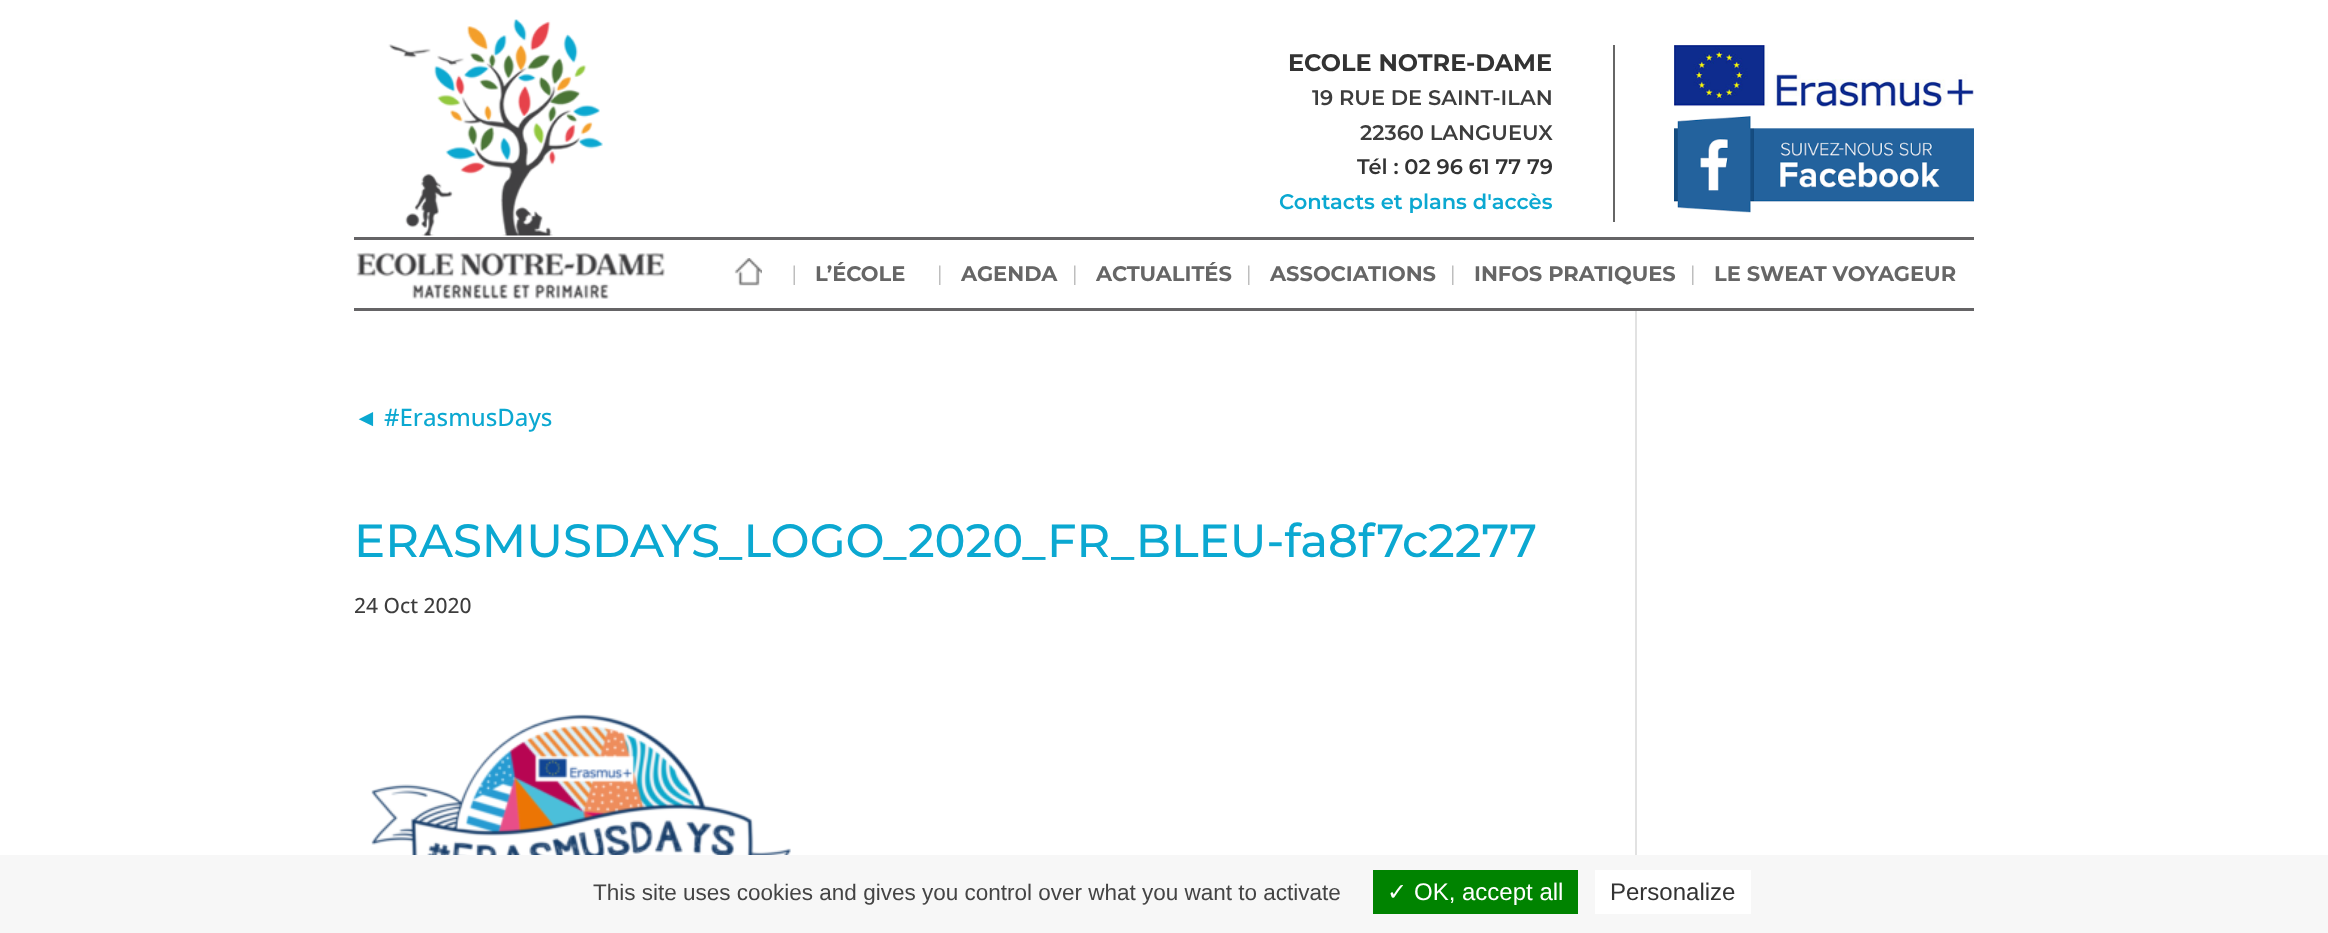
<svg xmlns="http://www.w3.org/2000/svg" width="2328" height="933">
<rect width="100%" height="100%" fill="#fff"/>
<image x="388" y="19" width="215" height="217" href="media/1.png"/>
<text x="1288" y="71" style="font-family:'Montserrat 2';font-size:24px;font-weight:100;fill:#333">ECOLE NOTRE-DAME</text>
<text x="1312" y="105" style="font-family:'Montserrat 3';font-size:21px;font-weight:100;fill:#3d3d3d">19 RUE DE SAINT-ILAN</text>
<text x="1360" y="140" style="font-family:'Montserrat 3';font-size:21px;font-weight:100;fill:#3d3d3d">22360 LANGUEUX</text>
<text x="1357" y="174" style="font-family:'Montserrat 3';font-size:21px;font-weight:100;fill:#333">Tél : 02 96 61 77 79</text>
<text x="1279" y="209" style="font-family:'Montserrat 3';font-size:21px;font-weight:100;fill:#0ba8d1">Contacts et plans d'accès</text>
<rect x="1613" y="45" width="2" height="177" fill="#666"/>
<image x="1674" y="45" width="300" height="62" href="media/2.png"/>
<image x="1674" y="116" width="300" height="97" href="media/3.png"/>
<rect x="354" y="237" width="1620" height="3" fill="#656466"/>
<rect x="354" y="308" width="1620" height="3" fill="#656466"/>
<image x="356" y="252" width="309" height="47" href="media/4.png"/>
<image x="793" y="265" width="2" height="20" href="media/5.png"/>
<image x="734" y="258" width="28" height="28" href="media/6.png"/>
<image x="939" y="265" width="2" height="20" href="media/7.png"/>
<text x="815" y="281" style="font-family:'Montserrat 2';font-size:21px;font-weight:100;fill:#666">L’ÉCOLE</text>
<image x="1074" y="265" width="2" height="20" href="media/7.png"/>
<text x="961" y="281" style="font-family:'Montserrat 2';font-size:21px;font-weight:100;fill:#666">AGENDA</text>
<image x="1248" y="265" width="2" height="20" href="media/7.png"/>
<text x="1096" y="281" style="font-family:'Montserrat 2';font-size:21px;font-weight:100;fill:#666">ACTUALITÉS</text>
<image x="1452" y="265" width="2" height="20" href="media/7.png"/>
<text x="1270" y="281" style="font-family:'Montserrat 2';font-size:21px;font-weight:100;fill:#666">ASSOCIATIONS</text>
<image x="1692" y="265" width="2" height="20" href="media/7.png"/>
<text x="1474" y="281" style="font-family:'Montserrat 2';font-size:21px;font-weight:100;fill:#666">INFOS PRATIQUES</text>
<text x="1714" y="281" style="font-family:'Montserrat 2';font-size:21px;font-weight:100;fill:#666">LE SWEAT VOYAGEUR</text>
<text x="354" y="426" style="font-family:Liberation Sans;font-size:24px;fill:#0ba8d1">◄</text>
<text x="384" y="426" style="font-family:Open Sans;font-size:24px;font-weight:500;fill:#0ba8d1">#ErasmusDays</text>
<text x="354" y="557" style="font-family:Montserrat;font-size:46.5px;font-weight:100;fill:#0ba8d1">ERASMUSDAYS_LOGO_2020_FR_BLEU-fa8f7c2277</text>
<text x="354" y="613" style="font-family:Open Sans;font-size:21px;font-weight:500;fill:#3d3d3d">24 Oct 2020</text>
<image x="371" y="714" width="420" height="141" href="media/8.png"/>
<rect x="1635" y="311" width="2" height="544" fill="#e2e2e2"/>
<rect y="855" width="2328" height="78" fill="#f7f7f7"/>
<text x="593" y="900" style="font-family:Liberation Sans;font-size:22.5px;fill:#444">This site uses cookies and gives you control over what you want to activate</text>
<rect x="1373" y="870" width="205" height="44" fill="#008300"/>
<text x="1387" y="900" style="font-family:DejaVu Sans;font-size:24px;fill:#fff">✓</text>
<text x="1414" y="900" style="font-family:Liberation Sans;font-size:24px;fill:#fff">OK, accept all</text>
<rect x="1595" y="870" width="156" height="44" fill="#fff"/>
<text x="1610" y="900" style="font-family:Liberation Sans;font-size:24px;fill:#333">Personalize</text>
</svg>
